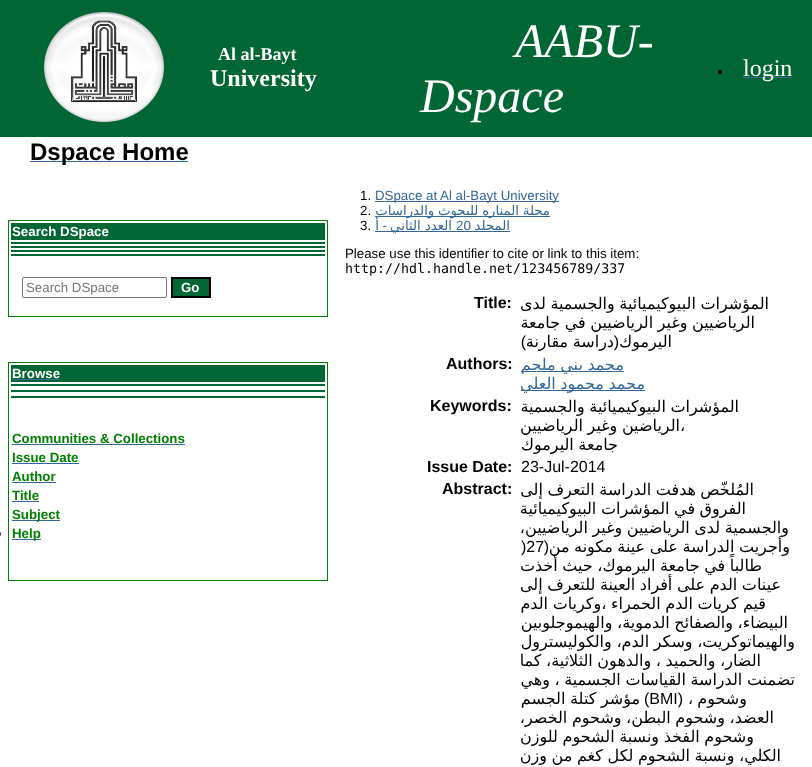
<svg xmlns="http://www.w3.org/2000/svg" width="812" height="767">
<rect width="100%" height="100%" fill="#fff"/>
<rect width="812" height="137" fill="#063"/>
<rect x="743" y="77" width="49" height="1" fill="#369"/>
<text x="743" y="76" style="font-family:Liberation Serif;font-size:24px;fill:#fff">login</text>
<circle cx="720" cy="72" r="2" fill="#000"/>
<text x="515" y="57" style="font-family:Liberation Serif;font-size:48px;font-style:italic;fill:#fff">AABU-</text>
<text x="420" y="112" style="font-family:Liberation Serif;font-size:48px;font-style:italic;fill:#fff">Dspace</text>
<text x="218" y="60" style="font-family:Liberation Serif;font-size:18px;font-weight:bold;fill:#fff">Al al-Bayt</text>
<text x="210" y="86" style="font-family:Liberation Serif;font-size:24px;font-weight:bold;fill:#fff">University</text>
<image x="44" y="12" width="120" height="110" href="media/1.png"/>
<rect x="30" y="161" width="158" height="1" fill="#369"/>
<text x="30" y="160" style="font-family:Liberation Sans;font-size:24px;font-weight:bold;fill:#000">Dspace Home</text>
<rect x="375" y="201" width="184" height="1" fill="#369"/>
<text x="375" y="200" style="font-family:Liberation Sans;font-size:13.3px;fill:#369">DSpace at Al al-Bayt University</text>
<text x="360" y="200" style="font-family:Liberation Sans;font-size:13.3px;fill:#000">1.</text>
<rect x="375" y="216" width="175" height="1" fill="#369"/>
<text x="550" y="215" word-spacing="-0.5" style="font-family:DejaVu Sans;font-size:13.3px;direction:rtl;fill:#369">مجلة المناره للبحوث والدراسات</text>
<text x="360" y="215" style="font-family:Liberation Sans;font-size:13.3px;fill:#000">2.</text>
<rect x="375" y="231" width="135" height="1" fill="#369"/>
<text x="510" y="230" style="font-family:DejaVu Sans;font-size:13.3px;direction:rtl;fill:#369">المجلد</text>
<text x="456" y="230" style="font-family:Liberation Sans;font-size:13.3px;fill:#369">20</text>
<text x="452" y="230" style="font-family:DejaVu Sans;font-size:13.3px;direction:rtl;fill:#369">العدد الثاني</text>
<text x="387" y="230" style="font-family:Liberation Sans;font-size:13.3px;direction:rtl;fill:#369">-</text>
<text x="379" y="230" style="font-family:DejaVu Sans;font-size:13.3px;direction:rtl;fill:#369">أ</text>
<text x="360" y="230" style="font-family:Liberation Sans;font-size:13.3px;fill:#000">3.</text>
<text x="345" y="258" style="font-family:Liberation Sans;font-size:13.3px;fill:#000">Please use this identifier to cite or link to this item:</text>
<text x="345" y="273" style="font-family:DejaVu Sans Mono;font-size:13.3px;fill:#000">http://hdl.handle.net/123456789/337</text>
<text x="769" y="309" word-spacing="-0.5" style="font-family:DejaVu Sans;font-size:16px;direction:rtl;fill:#000">المؤشرات البيوكيميائية والجسمية لدى</text>
<text x="755" y="328" word-spacing="-0.5" style="font-family:DejaVu Sans;font-size:16px;direction:rtl;fill:#000">الرياضيين وغير الرياضيين في جامعة</text>
<text x="672" y="347" style="font-family:DejaVu Sans;font-size:16px;direction:rtl;fill:#000">اليرموك</text>
<text x="619" y="347" style="font-family:Liberation Sans;font-size:16px;direction:rtl;fill:#000">(</text>
<text x="614" y="347" word-spacing="-0.5" style="font-family:DejaVu Sans;font-size:16px;direction:rtl;fill:#000">دراسة مقارنة</text>
<text x="526" y="347" style="font-family:Liberation Sans;font-size:16px;direction:rtl;fill:#000">)</text>
<text x="474" y="308" style="font-family:Liberation Sans;font-size:16px;font-weight:bold;fill:#000">Title:</text>
<rect x="521" y="371" width="103" height="1" fill="#369"/>
<text x="624" y="370" word-spacing="-0.5" style="font-family:DejaVu Sans;font-size:16px;direction:rtl;fill:#369">محمد بني ملحم</text>
<rect x="521" y="390" width="124" height="1" fill="#369"/>
<text x="645" y="389" word-spacing="-0.5" style="font-family:DejaVu Sans;font-size:16px;direction:rtl;fill:#369">محمد محمود العلي</text>
<text x="446" y="369" style="font-family:Liberation Sans;font-size:16px;font-weight:bold;fill:#000">Authors:</text>
<text x="739" y="412" word-spacing="-0.5" style="font-family:DejaVu Sans;font-size:16px;direction:rtl;fill:#000">المؤشرات البيوكيميائية والجسمية</text>
<text x="680" y="431" style="font-family:DejaVu Sans;font-size:16px;fill:#000">،</text>
<text x="680" y="431" word-spacing="-0.5" style="font-family:DejaVu Sans;font-size:16px;direction:rtl;fill:#000">الرياضين وغير الرياضيين</text>
<text x="618" y="450" word-spacing="-0.5" style="font-family:DejaVu Sans;font-size:16px;direction:rtl;fill:#000">جامعة اليرموك</text>
<text x="430" y="411" style="font-family:Liberation Sans;font-size:16px;font-weight:bold;fill:#000">Keywords:</text>
<text x="521" y="472" style="font-family:Liberation Sans;font-size:16px;fill:#000">23-Jul-2014</text>
<text x="427" y="472" style="font-family:Liberation Sans;font-size:16px;font-weight:bold;fill:#000">Issue Date:</text>
<text x="754" y="495" style="font-family:DejaVu Sans;font-size:16px;direction:rtl;fill:#000">المُلخّص</text>
<text x="696" y="495" word-spacing="-0.5" style="font-family:DejaVu Sans;font-size:16px;direction:rtl;fill:#000">هدفت الدراسة التعرف إلى</text>
<text x="746" y="514" word-spacing="-0.5" style="font-family:DejaVu Sans;font-size:16px;direction:rtl;fill:#000">الفروق في المؤشرات البيوكيميائية</text>
<text x="789" y="533" word-spacing="-0.5" style="font-family:DejaVu Sans;font-size:16px;direction:rtl;fill:#000">والجسمية لدى الرياضيين وغير الرياضيين،</text>
<text x="790" y="552" word-spacing="-0.5" style="font-family:DejaVu Sans;font-size:16px;direction:rtl;fill:#000">وأجريت الدراسة على عينة مكونه من</text>
<text x="549" y="552" style="font-family:Liberation Sans;font-size:16px;direction:rtl;fill:#000">(</text>
<text x="521" y="552" style="font-family:Liberation Sans;font-size:16px;fill:#000">)27</text>
<text x="762" y="571" word-spacing="-0.5" style="font-family:DejaVu Sans;font-size:16px;direction:rtl;fill:#000">طالباً في جامعة اليرموك، حيث أخذت</text>
<text x="781" y="590" word-spacing="-0.5" style="font-family:DejaVu Sans;font-size:16px;direction:rtl;fill:#000">عينات الدم على أفراد العينة للتعرف إلى</text>
<text x="766" y="609" word-spacing="-0.5" style="font-family:DejaVu Sans;font-size:16px;direction:rtl;fill:#000">قيم كريات الدم الحمراء ،وكريات الدم</text>
<text x="788" y="628" word-spacing="-0.5" style="font-family:DejaVu Sans;font-size:16px;direction:rtl;fill:#000">البيضاء، والصفائح الدموية، والهيموجلوبين</text>
<text x="795" y="647" word-spacing="-0.5" style="font-family:DejaVu Sans;font-size:16px;direction:rtl;fill:#000">والهيماتوكريت، وسكر الدم، والكوليسترول</text>
<text x="761" y="666" word-spacing="-0.5" style="font-family:DejaVu Sans;font-size:16px;direction:rtl;fill:#000">الضار، والحميد ، والدهون الثلاثية، كما</text>
<text x="795" y="685" word-spacing="-0.5" style="font-family:DejaVu Sans;font-size:16px;direction:rtl;fill:#000">تضمنت الدراسة القياسات الجسمية ، وهي</text>
<text x="747" y="704" style="font-family:DejaVu Sans;font-size:16px;direction:rtl;fill:#000">وشحوم</text>
<text x="688" y="704" style="font-family:DejaVu Sans;font-size:16px;fill:#000">،</text>
<text x="644" y="704" style="font-family:Liberation Sans;font-size:16px;fill:#000">(BMI)</text>
<text x="640" y="704" word-spacing="-0.5" style="font-family:DejaVu Sans;font-size:16px;direction:rtl;fill:#000">مؤشر كتلة الجسم</text>
<text x="774" y="723" word-spacing="-0.5" style="font-family:DejaVu Sans;font-size:16px;direction:rtl;fill:#000">العضد، وشحوم البطن، وشحوم الخصر،</text>
<text x="754" y="742" word-spacing="-0.5" style="font-family:DejaVu Sans;font-size:16px;direction:rtl;fill:#000">وشحوم الفخذ ونسبة الشحوم للوزن</text>
<text x="781" y="761" word-spacing="-0.5" style="font-family:DejaVu Sans;font-size:16px;direction:rtl;fill:#000">الكلي، ونسبة الشحوم لكل كغم من وزن</text>
<text x="442" y="494" style="font-family:Liberation Sans;font-size:16px;font-weight:bold;fill:#000">Abstract:</text>
<rect x="8.5" y="220.5" width="319" height="96" fill="none" stroke="#008000"/>
<rect x="11" y="223" width="314" height="17" fill="#063"/>
<text x="12" y="236" style="font-family:Liberation Sans;font-size:13.3px;font-weight:bold;fill:#fff">Search DSpace</text>
<rect x="11" y="242" width="314" height="2" fill="#063"/>
<rect x="11" y="246" width="314" height="2" fill="#063"/>
<rect x="11" y="250" width="314" height="2" fill="#063"/>
<rect x="11" y="254" width="314" height="2" fill="#063"/>
<rect x="172" y="278" width="38" height="19" fill="#063" stroke="#000" stroke-width="2"/>
<text x="181" y="292" style="font-family:Liberation Sans;font-size:13.3px;font-weight:bold;fill:#fff">Go</text>
<rect x="22.5" y="277.5" width="144" height="20" rx="1.5" fill="none" stroke="#767676"/>
<text x="26" y="292" style="font-family:Liberation Sans;font-size:13.3px;fill:#757575">Search DSpace</text>
<rect x="8.5" y="362.5" width="319" height="218" fill="none" stroke="#008000"/>
<rect x="11" y="365" width="314" height="17" fill="#063"/>
<text x="12" y="378" style="font-family:Liberation Sans;font-size:13.3px;font-weight:bold;fill:#fff">Browse</text>
<rect x="12" y="379" width="48" height="1" fill="#369"/>
<rect x="11" y="384" width="314" height="2" fill="#063"/>
<rect x="11" y="390" width="314" height="2" fill="#063"/>
<rect x="11" y="396" width="314" height="2" fill="#063"/>
<text x="12" y="443" style="font-family:Liberation Sans;font-size:13.3px;font-weight:bold;fill:#008000">Communities &amp; Collections</text>
<rect x="12" y="444" width="173" height="1" fill="#369"/>
<text x="12" y="462" style="font-family:Liberation Sans;font-size:13.3px;font-weight:bold;fill:#008000">Issue Date</text>
<rect x="12" y="463" width="67" height="1" fill="#369"/>
<text x="12" y="481" style="font-family:Liberation Sans;font-size:13.3px;font-weight:bold;fill:#008000">Author</text>
<rect x="12" y="482" width="44" height="1" fill="#369"/>
<text x="12" y="500" style="font-family:Liberation Sans;font-size:13.3px;font-weight:bold;fill:#008000">Title</text>
<rect x="12" y="501" width="27" height="1" fill="#369"/>
<rect x="12" y="520" width="48" height="1" fill="#369"/>
<text x="12" y="519" style="font-family:Liberation Sans;font-size:13.3px;font-weight:bold;fill:#008000">Subject</text>
<rect x="12" y="539" width="29" height="1" fill="#369"/>
<text x="12" y="538" style="font-family:Liberation Sans;font-size:13.3px;font-weight:bold;fill:#008000">Help</text>
<rect x="-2" y="532" width="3" height="4" rx="2" fill="#252645"/>
</svg>
